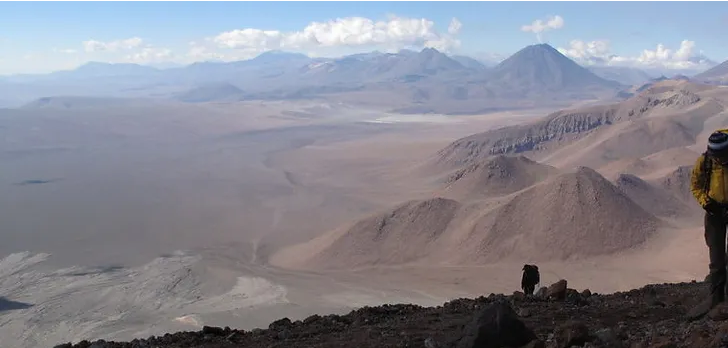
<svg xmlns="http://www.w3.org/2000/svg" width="728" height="348">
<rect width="100%" height="100%" fill="#fff"/>
<image x="0" y="1" width="728" height="347" href="media/1.png"/>
</svg>
